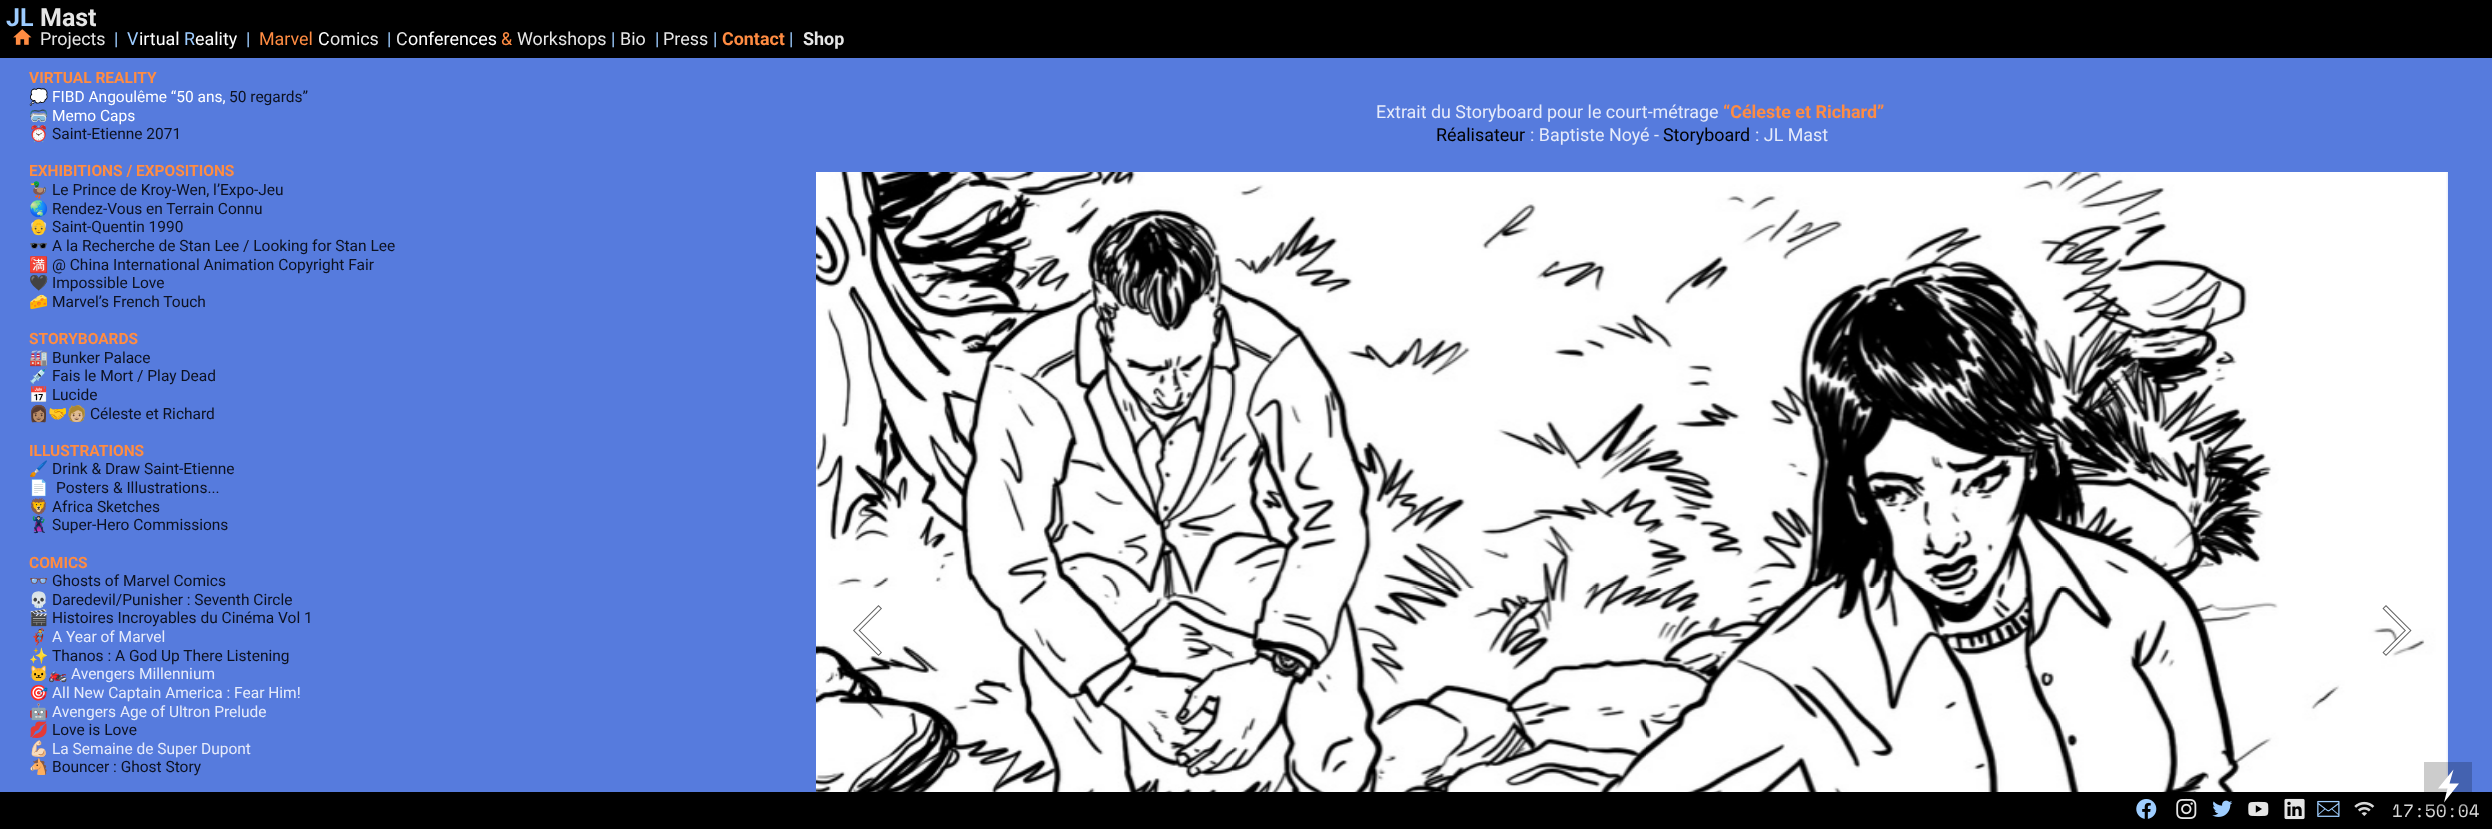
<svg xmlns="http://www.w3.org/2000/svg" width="2492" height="829">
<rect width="100%" height="100%" fill="#567bdd"/>
<rect width="2492" height="58" fill="#000"/>
<text x="6" y="26" style="font-family:Roboto;font-size:25px;font-weight:bold;fill:#9dccff">JL</text>
<text x="40" y="26" style="font-family:Roboto;font-size:25px;font-weight:bold;fill:#e6e6e6">Mast</text>
<image x="13" y="29" width="19" height="16" href="media/1.png"/>
<text x="40" y="45" style="font-family:Roboto;font-size:17.9px;fill:#e6e6e6">Projects</text>
<text x="114" y="45" style="font-family:Roboto;font-size:17.9px;fill:#9dccff">|</text>
<text x="127" y="45" style="font-family:Roboto;font-size:17.9px;fill:#9dccff">V</text>
<text x="139" y="45" style="font-family:Roboto;font-size:17.9px;fill:#fff">irtual</text>
<text x="184" y="45" style="font-family:Roboto;font-size:17.9px;fill:#9dccff">R</text>
<text x="195" y="45" style="font-family:Roboto;font-size:17.9px;fill:#fff">eality</text>
<text x="246" y="45" style="font-family:Roboto;font-size:17.9px;fill:#9dccff">|</text>
<text x="259" y="45" style="font-family:Roboto;font-size:17.9px;fill:#ff8c42">Marvel</text>
<text x="318" y="45" style="font-family:Roboto;font-size:17.9px;fill:#fff">C</text>
<text x="330" y="45" style="font-family:Roboto;font-size:17.9px;fill:#e6e6e6">omics</text>
<text x="387" y="45" style="font-family:Roboto;font-size:17.9px;fill:#9dccff">|</text>
<text x="396" y="45" style="font-family:Roboto;font-size:17.9px;fill:#e6e6e6">C</text>
<text x="408" y="45" style="font-family:Roboto;font-size:17.9px;fill:#fff">onferences</text>
<text x="501" y="45" style="font-family:Roboto;font-size:17.9px;fill:#ff8c42">&amp;</text>
<text x="517" y="45" style="font-family:Roboto;font-size:17.9px;fill:#e6e6e6">Workshops</text>
<text x="611" y="45" style="font-family:Roboto;font-size:17.9px;fill:#9dccff">|</text>
<text x="620" y="45" style="font-family:Roboto;font-size:17.9px;fill:#e6e6e6">Bio</text>
<text x="655" y="45" style="font-family:Roboto;font-size:17.9px;fill:#9dccff">|</text>
<text x="663" y="45" style="font-family:Roboto;font-size:17.9px;fill:#e6e6e6">Press</text>
<text x="713" y="45" style="font-family:Roboto;font-size:17.9px;fill:#9dccff">|</text>
<text x="722" y="45" style="font-family:Roboto;font-size:17.9px;font-weight:bold;fill:#ff8c42">Contact</text>
<text x="789" y="45" style="font-family:Roboto;font-size:17.9px;fill:#9dccff">|</text>
<text x="803" y="45" style="font-family:Roboto;font-size:17.9px;font-weight:bold;fill:#e6e6e6">Shop</text>
<text x="29" y="83" style="font-family:Roboto;font-size:15.5px;font-weight:bold;fill:#ff8c42">VIRTUAL REALITY</text>
<text x="29" y="102" style="font-family:Noto Color Emoji;font-size:15.5px;fill:#fff">💭️</text>
<text x="52" y="102" style="font-family:Roboto;font-size:15.5px;fill:#fff">FIBD Angoulême “50 ans,</text>
<text x="229" y="102" style="font-family:Roboto;font-size:15.5px;fill:#0d1221">50 regards”</text>
<text x="29" y="121" style="font-family:Noto Color Emoji;font-size:15.5px;fill:#fff">🥽</text>
<text x="52" y="121" style="font-family:Roboto;font-size:15.5px;fill:#fff">Memo Caps</text>
<text x="29" y="139" style="font-family:Noto Color Emoji;font-size:15.5px;fill:#0d1221">⏰️</text>
<text x="52" y="139" style="font-family:Roboto;font-size:15.5px;fill:#0d1221">Saint-Etienne 2071</text>
<text x="29" y="176" style="font-family:Roboto;font-size:15.5px;font-weight:bold;fill:#ff8c42">EXHIBITIONS / EXPOSITIONS</text>
<text x="29" y="195" style="font-family:Noto Color Emoji;font-size:15.5px;fill:#e6ebfa">🦆️</text>
<text x="52" y="195" style="font-family:Roboto;font-size:15.5px;fill:#0d1221">Le Prince de Kroy-Wen, l’Expo-Jeu</text>
<text x="29" y="214" style="font-family:Noto Color Emoji;font-size:15.5px;fill:#e6ebfa">🌏️</text>
<text x="52" y="214" style="font-family:Roboto;font-size:15.5px;fill:#0d1221">Rendez-Vous en Terrain Connu</text>
<text x="29" y="232" style="font-family:Noto Color Emoji;font-size:15.5px;fill:#e6ebfa">👴</text>
<text x="52" y="232" style="font-family:Roboto;font-size:15.5px;fill:#0d1221">Saint-Quentin 1990</text>
<text x="29" y="251" style="font-family:Noto Color Emoji;font-size:15.5px;fill:#e6ebfa">🕶️</text>
<text x="52" y="251" style="font-family:Roboto;font-size:15.5px;fill:#0d1221">A la Recherche de Stan Lee / Looking for Stan Lee</text>
<text x="29" y="270" style="font-family:Noto Color Emoji;font-size:15.5px;fill:#e6ebfa">🈵</text>
<text x="52" y="270" style="font-family:Roboto;font-size:15.5px;fill:#0d1221">@ China International Animation Copyright Fair</text>
<text x="29" y="288" style="font-family:Noto Color Emoji;font-size:15.5px;fill:#e6ebfa">🖤️</text>
<text x="52" y="288" style="font-family:Roboto;font-size:15.5px;fill:#0d1221">Impossible Love</text>
<text x="29" y="307" style="font-family:Noto Color Emoji;font-size:15.5px;fill:#e6ebfa">🧀</text>
<text x="52" y="307" style="font-family:Roboto;font-size:15.5px;fill:#0d1221">Marvel’s French Touch</text>
<text x="29" y="344" style="font-family:Roboto;font-size:15.5px;font-weight:bold;fill:#ff8c42">STORYBOARDS</text>
<text x="29" y="363" style="font-family:Noto Color Emoji;font-size:15.5px;fill:#e6ebfa">🏭️</text>
<text x="52" y="363" style="font-family:Roboto;font-size:15.5px;fill:#0d1221">Bunker Palace</text>
<text x="29" y="381" style="font-family:Noto Color Emoji;font-size:15.5px;fill:#e6ebfa">💉️</text>
<text x="52" y="381" style="font-family:Roboto;font-size:15.5px;fill:#0d1221">Fais le Mort / Play Dead</text>
<text x="29" y="400" style="font-family:Noto Color Emoji;font-size:15.5px;fill:#e6ebfa">📅</text>
<text x="52" y="400" style="font-family:Roboto;font-size:15.5px;fill:#0d1221">Lucide</text>
<text x="29" y="419" style="font-family:Noto Color Emoji;font-size:15.5px;fill:#e6ebfa">👩🏽‍🤝‍🧑🏼</text>
<text x="90" y="419" style="font-family:Roboto;font-size:15.5px;fill:#0d1221">Céleste et Richard</text>
<text x="29" y="456" style="font-family:Roboto;font-size:15.5px;font-weight:bold;fill:#ff8c42">ILLUSTRATIONS</text>
<text x="29" y="474" style="font-family:Noto Color Emoji;font-size:15.5px;fill:#e6ebfa">🖌️</text>
<text x="52" y="474" style="font-family:Roboto;font-size:15.5px;fill:#0d1221">Drink &amp; Draw Saint-Etienne</text>
<text x="29" y="493" style="font-family:Noto Color Emoji;font-size:15.5px;fill:#e6ebfa">📄️</text>
<text x="56" y="493" style="font-family:Roboto;font-size:15.5px;fill:#0d1221">Posters &amp; Illustrations...</text>
<text x="29" y="512" style="font-family:Noto Color Emoji;font-size:15.5px;fill:#e6ebfa">🦁</text>
<text x="52" y="512" style="font-family:Roboto;font-size:15.5px;fill:#0d1221">Africa Sketches</text>
<text x="29" y="530" style="font-family:Noto Color Emoji;font-size:15.5px;fill:#e6ebfa">🦹🏻‍♂️</text>
<text x="52" y="530" style="font-family:Roboto;font-size:15.5px;fill:#0d1221">Super-Hero Commissions</text>
<text x="29" y="568" style="font-family:Roboto;font-size:15.5px;font-weight:bold;fill:#ff8c42">COMICS</text>
<text x="29" y="586" style="font-family:Noto Color Emoji;font-size:15.5px;fill:#e6ebfa">👓</text>
<text x="52" y="586" style="font-family:Roboto;font-size:15.5px;fill:#0d1221">Ghosts of Marvel Comics</text>
<text x="29" y="605" style="font-family:Noto Color Emoji;font-size:15.5px;fill:#e6ebfa">💀️</text>
<text x="52" y="605" style="font-family:Roboto;font-size:15.5px;fill:#0d1221">Daredevil/Punisher : Seventh Circle</text>
<text x="29" y="623" style="font-family:Noto Color Emoji;font-size:15.5px;fill:#e6ebfa">🎬</text>
<text x="52" y="623" style="font-family:Roboto;font-size:15.5px;fill:#0d1221">Histoires Incroyables du Cinéma Vol 1</text>
<text x="29" y="642" style="font-family:Noto Color Emoji;font-size:15.5px;fill:#e6ebfa">🦸‍♂️</text>
<text x="52" y="642" style="font-family:Roboto;font-size:15.5px;fill:#e6ebfa">A Year of Marvel</text>
<text x="29" y="661" style="font-family:Noto Color Emoji;font-size:15.5px;fill:#e6ebfa">✨</text>
<text x="52" y="661" style="font-family:Roboto;font-size:15.5px;fill:#0d1221">Thanos : A God Up There Listening</text>
<text x="29" y="679" style="font-family:Noto Color Emoji;font-size:15.5px;fill:#e6ebfa">🐱‍🏍</text>
<text x="71" y="679" style="font-family:Roboto;font-size:15.5px;fill:#e6ebfa">Avengers Millennium</text>
<text x="29" y="698" style="font-family:Noto Color Emoji;font-size:15.5px;fill:#e6ebfa">🎯</text>
<text x="52" y="698" style="font-family:Roboto;font-size:15.5px;fill:#e6ebfa">All New Captain America : Fear Him!</text>
<text x="29" y="717" style="font-family:Noto Color Emoji;font-size:15.5px;fill:#e6ebfa">🤖️</text>
<text x="52" y="717" style="font-family:Roboto;font-size:15.5px;fill:#e6ebfa">Avengers Age of Ultron Prelude</text>
<text x="29" y="735" style="font-family:Noto Color Emoji;font-size:15.5px;fill:#e6ebfa">💋️</text>
<text x="52" y="735" style="font-family:Roboto;font-size:15.5px;fill:#0d1221">Love is Love</text>
<text x="29" y="754" style="font-family:Noto Color Emoji;font-size:15.5px;fill:#e6ebfa">💪🏻</text>
<text x="52" y="754" style="font-family:Roboto;font-size:15.5px;fill:#e6ebfa">La Semaine de Super Dupont</text>
<text x="29" y="772" style="font-family:Noto Color Emoji;font-size:15.5px;fill:#e6ebfa">🐴</text>
<text x="52" y="772" style="font-family:Roboto;font-size:15.5px;fill:#0d1221">Bouncer : Ghost Story</text>
<text x="1376" y="118" style="font-family:Roboto;font-size:17.9px;fill:#e6ebfa">Extrait du Storyboard pour le court-métrage</text>
<text x="1723" y="118" style="font-family:Roboto;font-size:17.9px;font-weight:bold;fill:#ff8c42">“Céleste et Richard”</text>
<text x="1436" y="141" style="font-family:Roboto;font-size:17.9px;fill:#000">Réalisateur</text>
<text x="1530" y="141" style="font-family:Roboto;font-size:17.9px;fill:#e6ebfa">: Baptiste Noyé -</text>
<text x="1663" y="141" style="font-family:Roboto;font-size:17.9px;fill:#000">Storyboard</text>
<text x="1755" y="141" style="font-family:Roboto;font-size:17.9px;fill:#e6ebfa">: JL Mast</text>
<image x="816" y="172" width="1632" height="620" href="media/2.png"/>
<path d="M878.5 652.5l-22-22l22-22" fill="none" stroke="#00000099" stroke-width="5" stroke-linecap="square"/>
<path d="M878.5 652.5l-22-22l22-22" fill="none" stroke="#fff" stroke-width="3" stroke-linecap="square"/>
<path d="M2386 652.5l22-22l-22-22" fill="none" stroke="#00000099" stroke-width="5" stroke-linecap="square"/>
<path d="M2386 652.5l22-22l-22-22" fill="none" stroke="#fff" stroke-width="3" stroke-linecap="square"/>
<rect y="792" width="2492" height="37" fill="#000"/>
<image x="2136" y="799" width="21" height="20" href="media/3.png"/>
<image x="2176" y="798" width="21" height="21" href="media/4.png"/>
<image x="2212" y="800" width="21" height="17" href="media/5.png"/>
<image x="2248" y="801" width="21" height="16" href="media/6.png"/>
<image x="2284" y="798" width="21" height="22" href="media/7.png"/>
<image x="2317" y="800" width="23" height="17" href="media/8.png"/>
<image x="2354" y="801" width="21" height="15" href="media/9.png"/>
<text x="2392" y="817" style="font-family:Space Mono;font-size:17.9px;fill:#d9d9d9">17:50:04</text>
<rect x="2424" y="762" width="48" height="48" fill="#00000033"/>
<path d="M2459 783.5h-9.5l4-14l-15.5 19h9.5l-3.5 14z" fill="#fff"/>
</svg>
